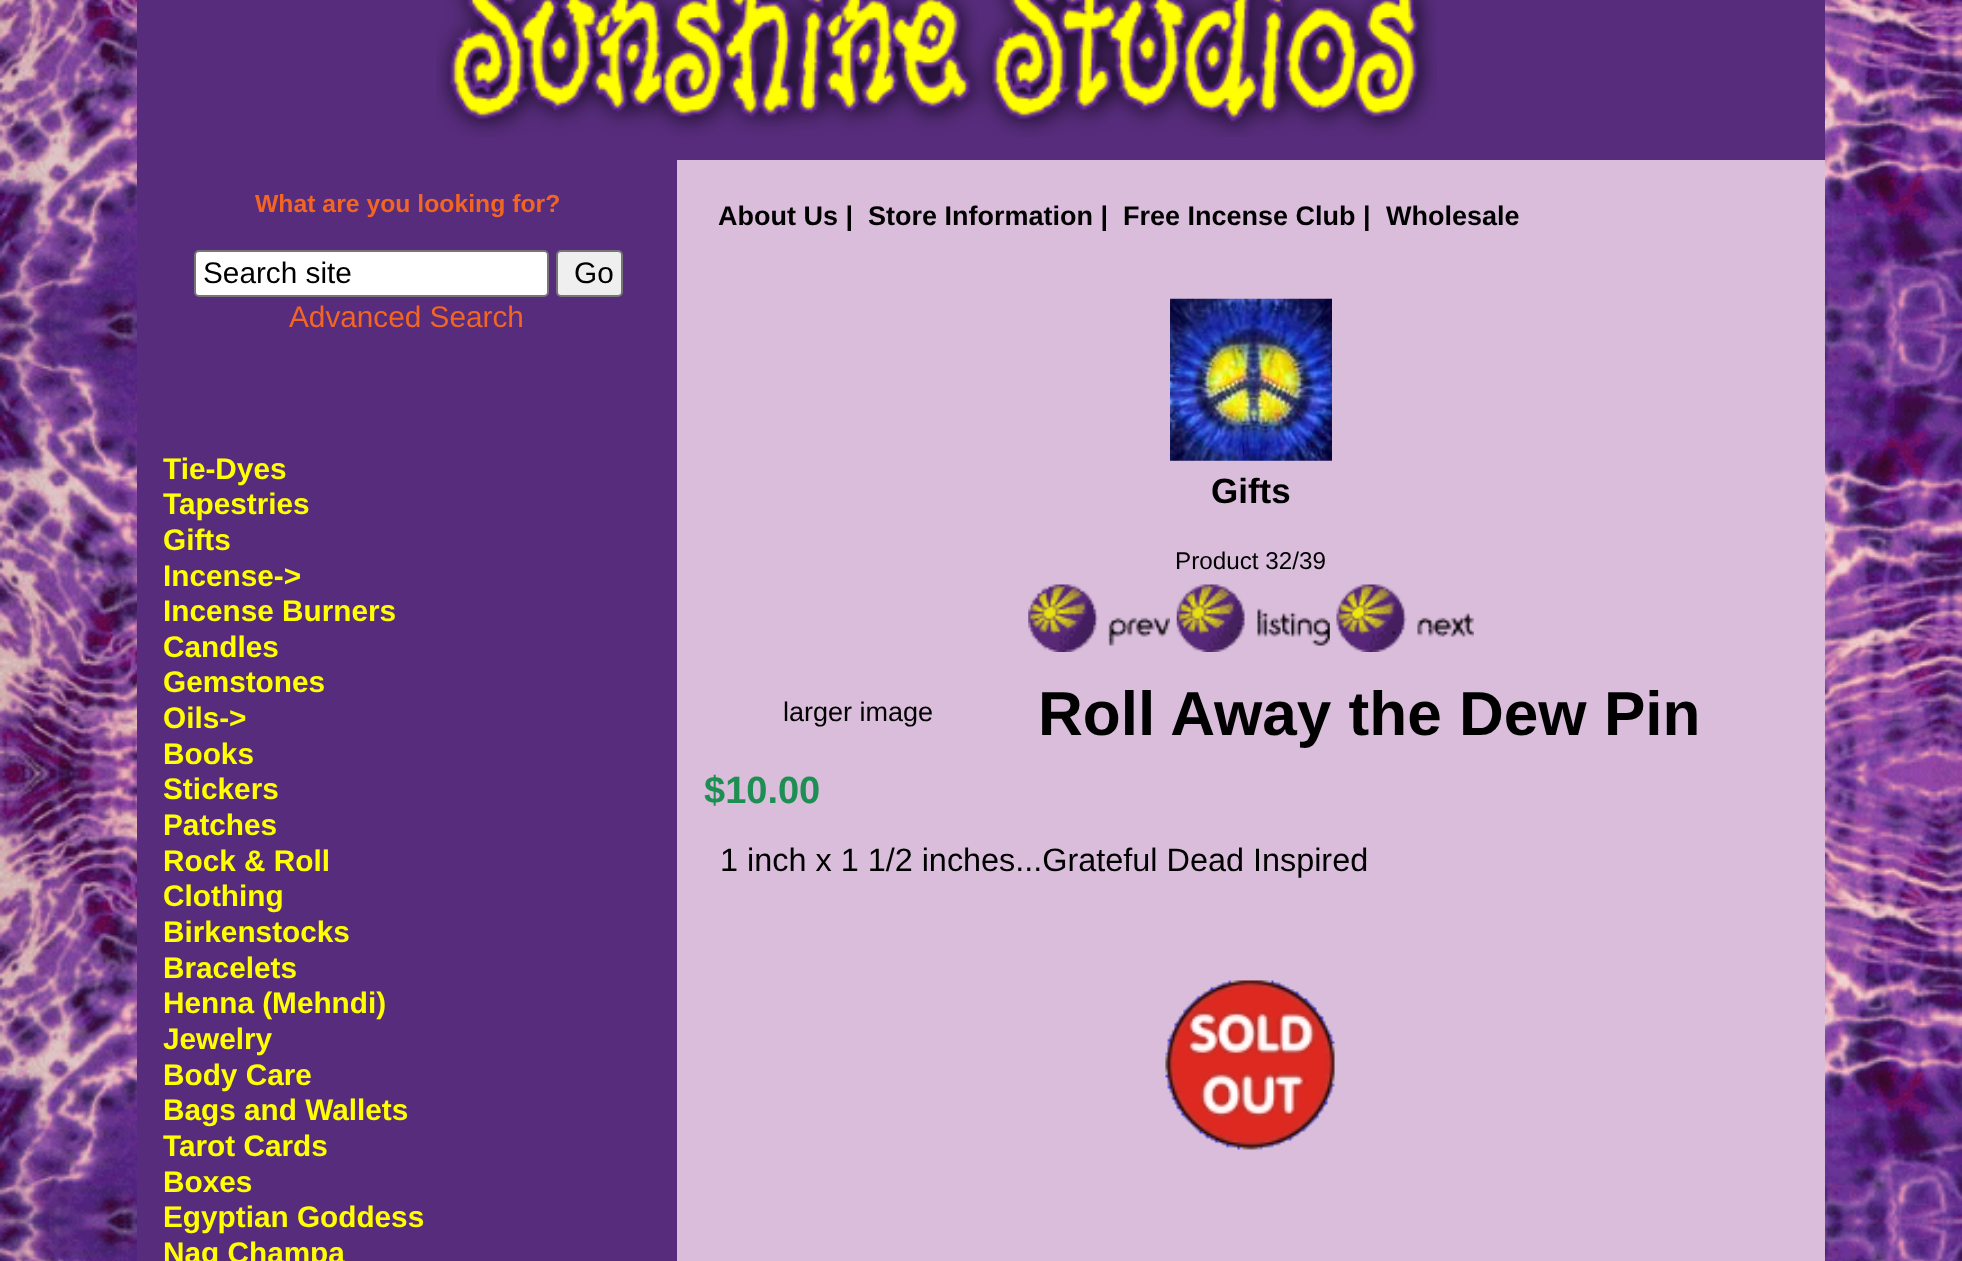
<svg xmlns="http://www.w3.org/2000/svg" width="1962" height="1261">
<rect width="100%" height="100%" fill="#fff"/>
<image x="0" y="0" width="1962" height="1261" href="media/1.png"/>
<rect x="677" y="160" width="1148" height="1101" fill="#d9bddb"/>
<rect x="137" width="1688" height="160" fill="#572c7c"/>
<image x="436" y="0" width="1001" height="137" href="media/2.png"/>
<rect x="137" y="160" width="540" height="1101" fill="#572c7c"/>
<text x="255" y="212" style="font-family:Liberation Sans;font-size:24.75px;font-weight:bold;fill:#f26522">What are you looking for?</text>
<rect x="195" y="251" width="353" height="45" rx="4" fill="#fff" stroke="#767676" stroke-width="2"/>
<text x="203" y="283" style="font-family:Liberation Sans;font-size:29.75px;fill:#000">Search site</text>
<rect x="557" y="251" width="65" height="45" rx="4" fill="#efefef" stroke="#767676" stroke-width="2"/>
<text x="574" y="283" style="font-family:Liberation Sans;font-size:29.75px;fill:#000">Go</text>
<text x="289" y="327" style="font-family:Liberation Sans;font-size:29.75px;fill:#f26522">Advanced Search</text>
<text x="163" y="479" style="font-family:Liberation Sans;font-size:29.75px;font-weight:bold;fill:#ff0">Tie-Dyes</text>
<text x="163" y="514" style="font-family:Liberation Sans;font-size:29.75px;font-weight:bold;fill:#ff0">Tapestries</text>
<text x="163" y="550" style="font-family:Liberation Sans;font-size:29.75px;font-weight:bold;fill:#ff0">Gifts</text>
<text x="163" y="586" style="font-family:Liberation Sans;font-size:29.75px;font-weight:bold;fill:#ff0">Incense-&gt;</text>
<text x="163" y="621" style="font-family:Liberation Sans;font-size:29.75px;font-weight:bold;fill:#ff0">Incense Burners</text>
<text x="163" y="657" style="font-family:Liberation Sans;font-size:29.75px;font-weight:bold;fill:#ff0">Candles</text>
<text x="163" y="692" style="font-family:Liberation Sans;font-size:29.75px;font-weight:bold;fill:#ff0">Gemstones</text>
<text x="163" y="728" style="font-family:Liberation Sans;font-size:29.75px;font-weight:bold;fill:#ff0">Oils-&gt;</text>
<text x="163" y="764" style="font-family:Liberation Sans;font-size:29.75px;font-weight:bold;fill:#ff0">Books</text>
<text x="163" y="799" style="font-family:Liberation Sans;font-size:29.75px;font-weight:bold;fill:#ff0">Stickers</text>
<text x="163" y="835" style="font-family:Liberation Sans;font-size:29.75px;font-weight:bold;fill:#ff0">Patches</text>
<text x="163" y="871" style="font-family:Liberation Sans;font-size:29.75px;font-weight:bold;fill:#ff0">Rock &amp; Roll</text>
<text x="163" y="906" style="font-family:Liberation Sans;font-size:29.75px;font-weight:bold;fill:#ff0">Clothing</text>
<text x="163" y="942" style="font-family:Liberation Sans;font-size:29.75px;font-weight:bold;fill:#ff0">Birkenstocks</text>
<text x="163" y="978" style="font-family:Liberation Sans;font-size:29.75px;font-weight:bold;fill:#ff0">Bracelets</text>
<text x="163" y="1013" style="font-family:Liberation Sans;font-size:29.75px;font-weight:bold;fill:#ff0">Henna (Mehndi)</text>
<text x="163" y="1049" style="font-family:Liberation Sans;font-size:29.75px;font-weight:bold;fill:#ff0">Jewelry</text>
<text x="163" y="1085" style="font-family:Liberation Sans;font-size:29.75px;font-weight:bold;fill:#ff0">Body Care</text>
<text x="163" y="1120" style="font-family:Liberation Sans;font-size:29.75px;font-weight:bold;fill:#ff0">Bags and Wallets</text>
<text x="163" y="1156" style="font-family:Liberation Sans;font-size:29.75px;font-weight:bold;fill:#ff0">Tarot Cards</text>
<text x="163" y="1192" style="font-family:Liberation Sans;font-size:29.75px;font-weight:bold;fill:#ff0">Boxes</text>
<text x="163" y="1227" style="font-family:Liberation Sans;font-size:29.75px;font-weight:bold;fill:#ff0">Egyptian Goddess</text>
<text x="163" y="1263" style="font-family:Liberation Sans;font-size:29.75px;font-weight:bold;fill:#ff0">Nag Champa</text>
<text x="718" y="225" style="font-family:Liberation Sans;font-size:27px;font-weight:bold;fill:#000">About Us |</text>
<text x="868" y="225" style="font-family:Liberation Sans;font-size:27px;font-weight:bold;fill:#000">Store Information |</text>
<text x="1123" y="225" style="font-family:Liberation Sans;font-size:27px;font-weight:bold;fill:#000">Free Incense Club |</text>
<text x="1386" y="225" style="font-family:Liberation Sans;font-size:27px;font-weight:bold;fill:#000">Wholesale</text>
<image x="1170" y="298" width="162" height="163" href="media/3.png"/>
<text x="1211" y="503" style="font-family:Liberation Sans;font-size:35px;font-weight:bold;fill:#000">Gifts</text>
<text x="1175" y="569" style="font-family:Liberation Sans;font-size:24.25px;fill:#000">Product 32/39</text>
<image x="1028" y="584" width="142" height="68" href="media/4.png"/>
<image x="1176" y="584" width="154" height="68" href="media/5.png"/>
<image x="1336" y="584" width="138" height="68" href="media/6.png"/>
<text x="783" y="721" style="font-family:Liberation Sans;font-size:27px;fill:#000">larger image</text>
<text x="1038" y="735" style="font-family:Liberation Sans;font-size:62.1px;font-weight:bold;fill:#000">Roll Away the Dew Pin</text>
<text x="704" y="803" style="font-family:Liberation Sans;font-size:38px;font-weight:bold;fill:#1d8f53">$10.00</text>
<text x="720" y="871" style="font-family:Liberation Sans;font-size:32.4px;fill:#000">1 inch x 1 1/2 inches...Grateful Dead Inspired</text>
<image x="1165" y="980" width="170" height="170" href="media/7.png"/>
</svg>
